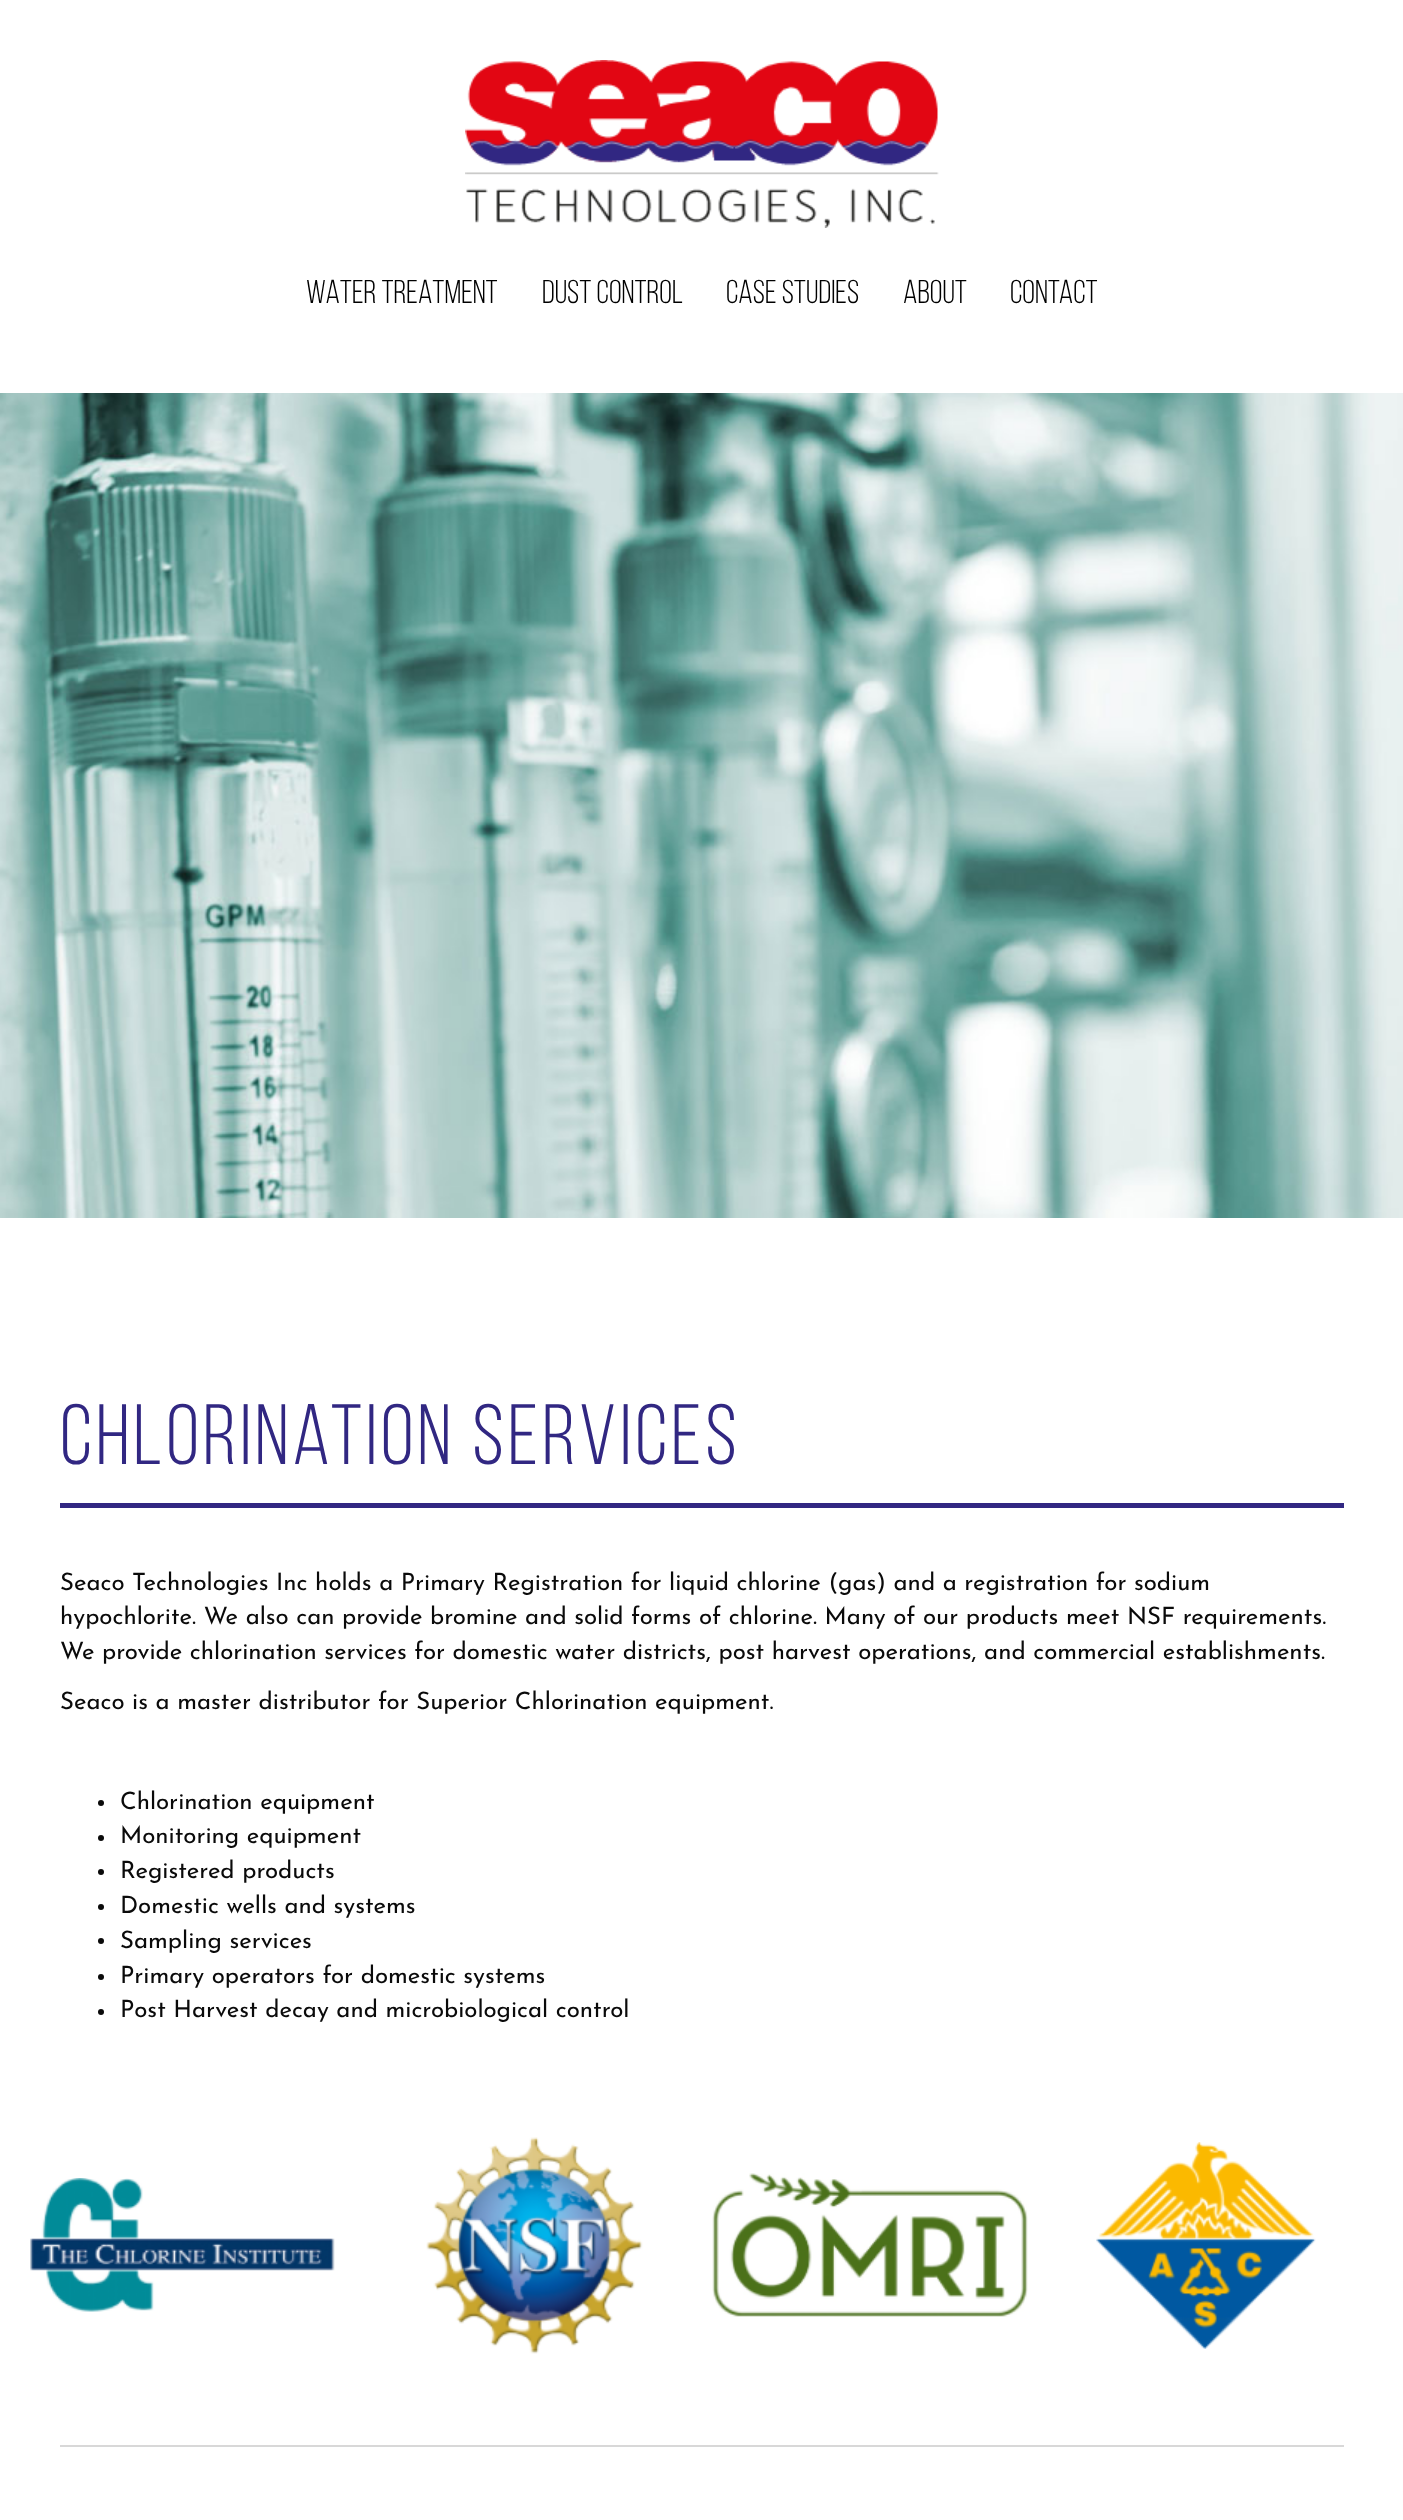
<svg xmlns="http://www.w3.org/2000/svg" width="1403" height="2520">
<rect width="100%" height="100%" fill="#fff"/>
<image x="465" y="60" width="474" height="168" href="media/1.png"/>
<text x="306" y="303" style="font-family:Bebas Neue;font-size:33px;fill:#000">WATER TREATMENT</text>
<text x="542" y="303" style="font-family:Bebas Neue;font-size:33px;fill:#000">DUST CONTROL</text>
<text x="726" y="303" style="font-family:Bebas Neue;font-size:33px;fill:#000">CASE STUDIES</text>
<text x="903" y="303" style="font-family:Bebas Neue;font-size:33px;fill:#000">ABOUT</text>
<text x="1010" y="303" style="font-family:Bebas Neue;font-size:33px;fill:#000">CONTACT</text>
<image x="0" y="393" width="1403" height="825" href="media/2.png"/>
<text x="60" y="1464" style="font-family:Bebas Neue;font-size:85.5px;letter-spacing:4.1px;fill:#312782">Chlorination Services</text>
<rect x="60" y="1503" width="1284" height="5" fill="#312782"/>
<text x="60" y="1590" style="font-family:Josefin Sans;font-size:24px;fill:#0a0a0a">Seaco Technologies Inc holds a Primary Registration for liquid chlorine (gas) and a registration for sodium</text>
<text x="60" y="1624" style="font-family:Josefin Sans;font-size:24px;fill:#0a0a0a">hypochlorite. We also can provide bromine and solid forms of chlorine. Many of our products meet NSF requirements.</text>
<text x="60" y="1659" style="font-family:Josefin Sans;font-size:24px;fill:#0a0a0a">We provide chlorination services for domestic water districts, post harvest operations, and commercial establishments.</text>
<text x="60" y="1709" style="font-family:Josefin Sans;font-size:24px;fill:#0a0a0a">Seaco is a master distributor for Superior Chlorination equipment.</text>
<circle cx="101" cy="1803" r="3" fill="#0a0a0a"/>
<text x="120" y="1809" style="font-family:Josefin Sans;font-size:24px;fill:#0a0a0a">Chlorination equipment</text>
<circle cx="101" cy="1838" r="3" fill="#0a0a0a"/>
<text x="120" y="1843" style="font-family:Josefin Sans;font-size:24px;fill:#0a0a0a">Monitoring equipment</text>
<circle cx="101" cy="1872" r="3" fill="#0a0a0a"/>
<text x="120" y="1878" style="font-family:Josefin Sans;font-size:24px;fill:#0a0a0a">Registered products</text>
<circle cx="101" cy="1907" r="3" fill="#0a0a0a"/>
<text x="120" y="1913" style="font-family:Josefin Sans;font-size:24px;fill:#0a0a0a">Domestic wells and systems</text>
<circle cx="101" cy="1941" r="3" fill="#0a0a0a"/>
<text x="120" y="1948" style="font-family:Josefin Sans;font-size:24px;fill:#0a0a0a">Sampling services</text>
<circle cx="101" cy="1977" r="3" fill="#0a0a0a"/>
<text x="120" y="1983" style="font-family:Josefin Sans;font-size:24px;fill:#0a0a0a">Primary operators for domestic systems</text>
<circle cx="101" cy="2012" r="3" fill="#0a0a0a"/>
<text x="120" y="2017" style="font-family:Josefin Sans;font-size:24px;fill:#0a0a0a">Post Harvest decay and microbiological control</text>
<image x="30" y="2178" width="305" height="134" href="media/3.png"/>
<image x="426" y="2137" width="217" height="217" href="media/4.png"/>
<image x="712" y="2173" width="316" height="144" href="media/5.png"/>
<image x="1096" y="2142" width="220" height="207" href="media/6.png"/>
<rect x="60" y="2445" width="1284" height="2" fill="#d8d8d8"/>
</svg>
